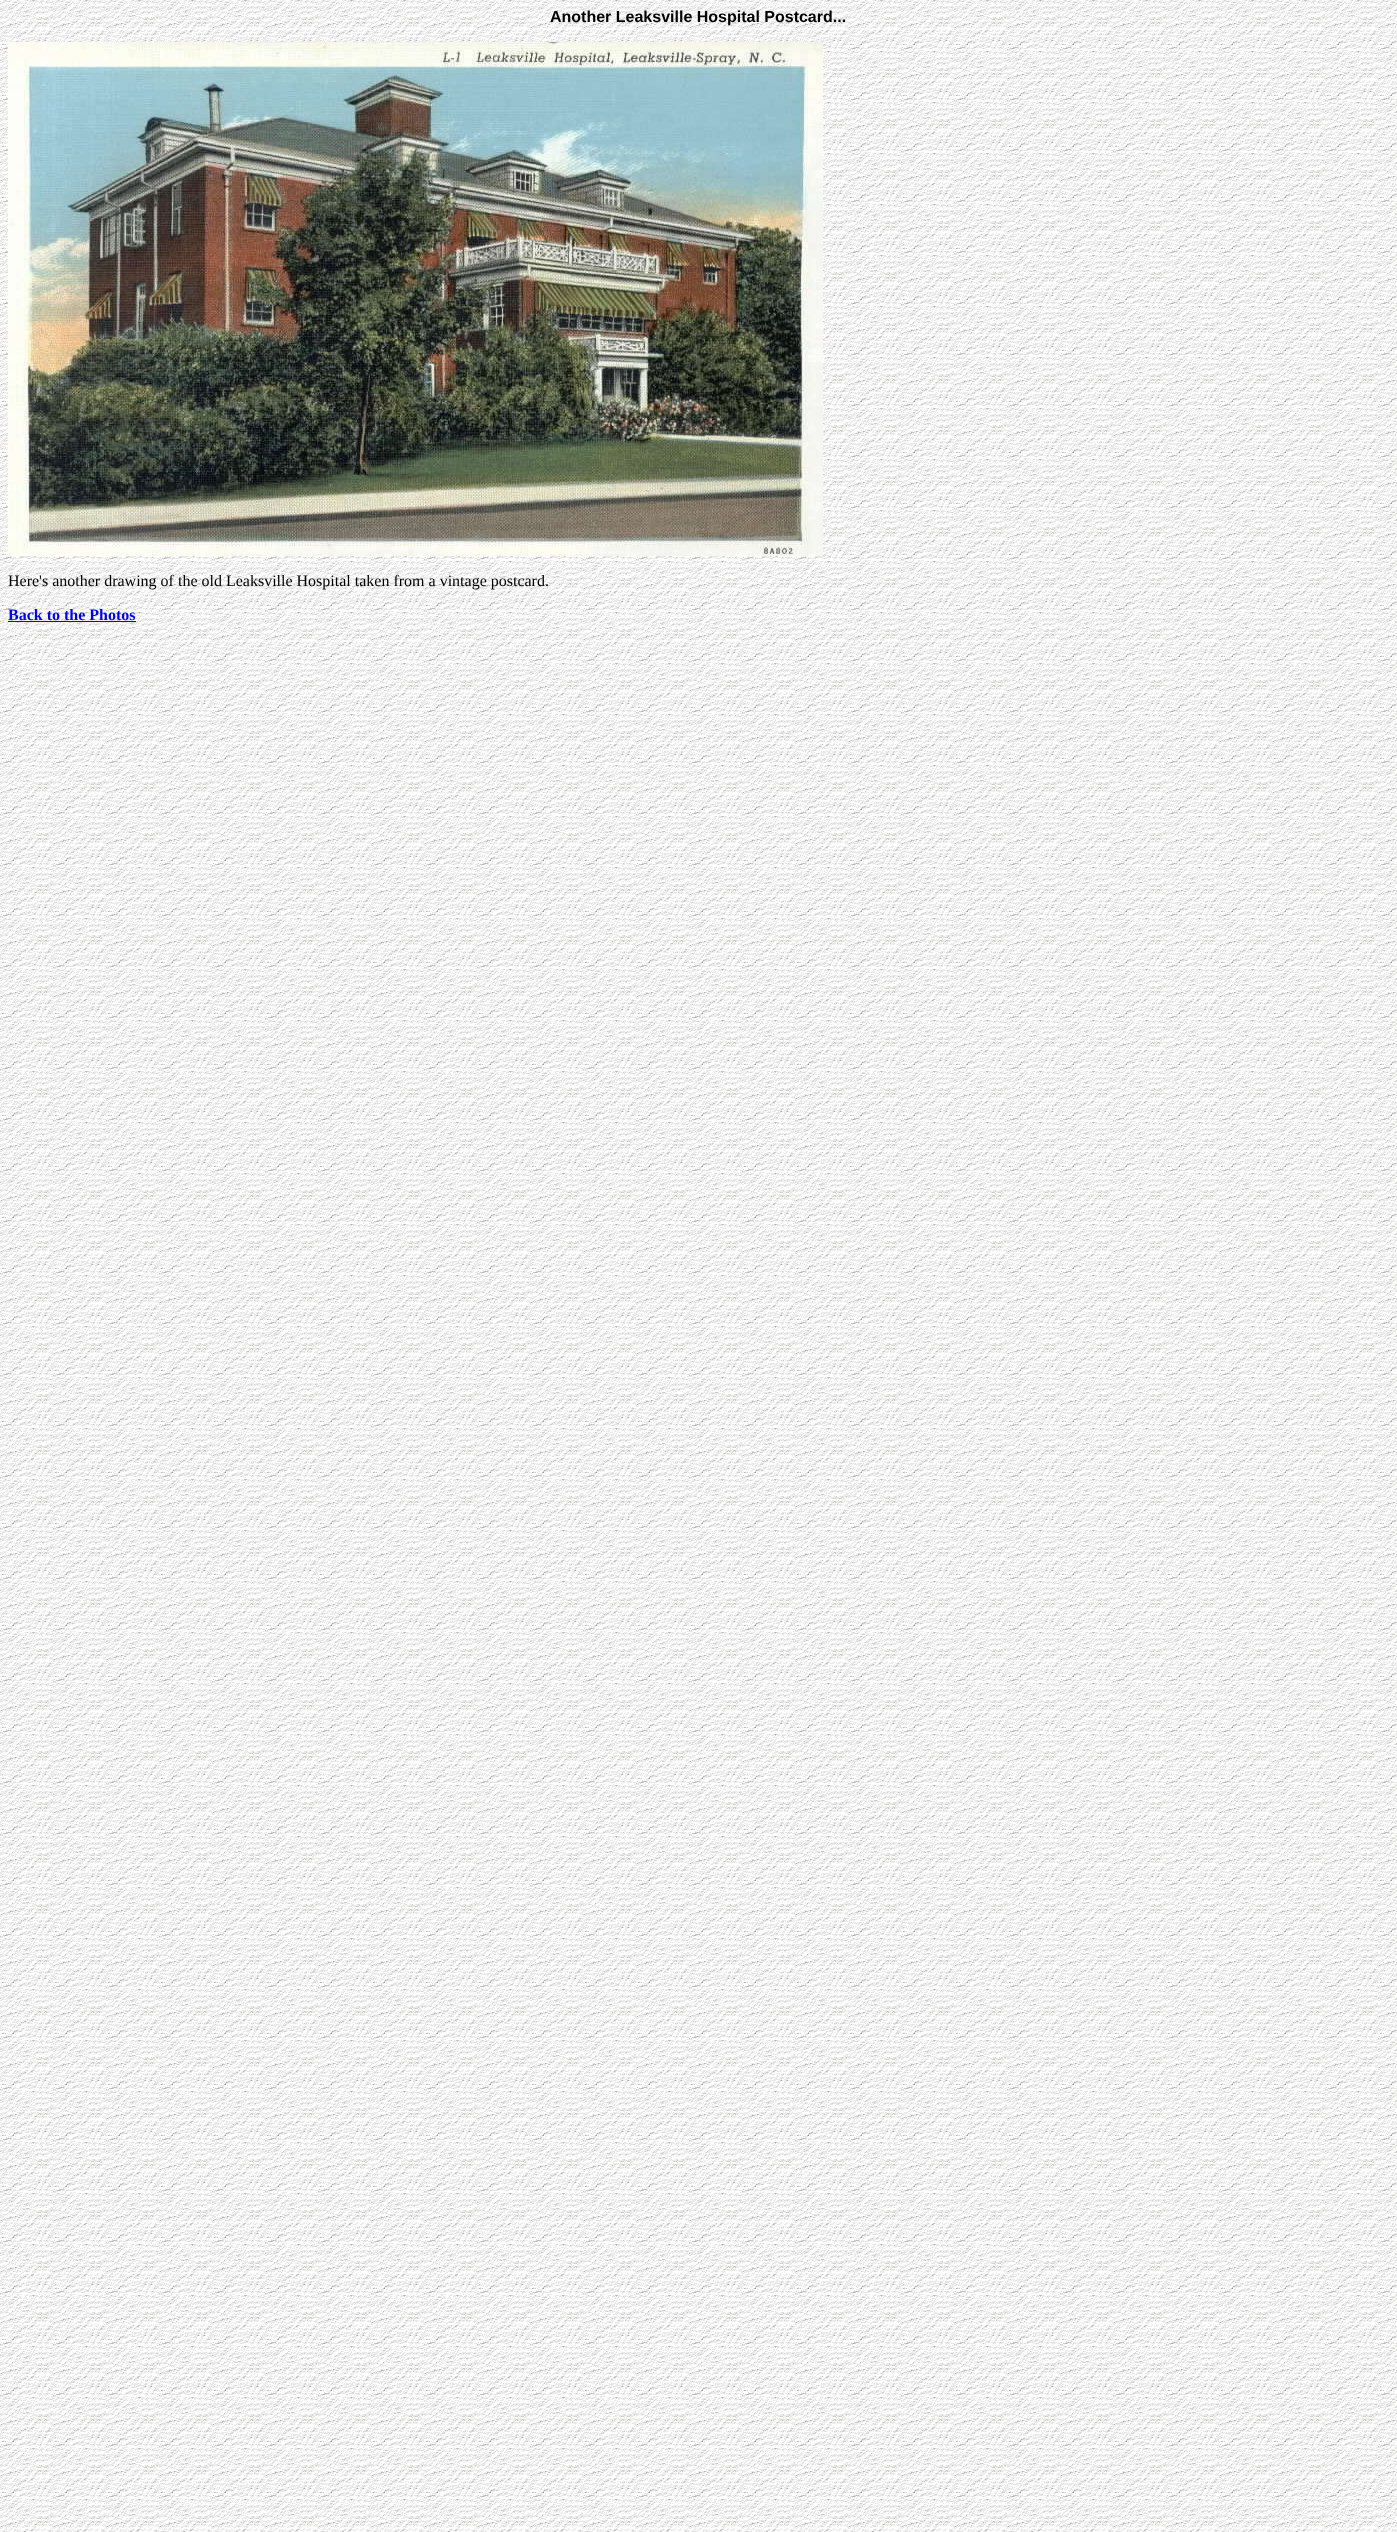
<svg xmlns="http://www.w3.org/2000/svg" width="1397" height="2532">
<rect width="100%" height="100%" fill="#fff"/>
<image x="0" y="0" width="1397" height="2532" href="media/1.png"/>
<text x="550" y="22" style="font-family:Liberation Sans;font-size:16px;font-weight:bold;fill:#000">Another Leaksville Hospital Postcard...</text>
<image x="8" y="42" width="815" height="514" href="media/2.png"/>
<text x="8" y="586" style="font-family:Liberation Serif;font-size:16px;fill:#000">Here's another drawing of the old Leaksville Hospital taken from a vintage postcard.</text>
<text x="8" y="620" style="font-family:Liberation Serif;font-size:16px;font-weight:bold;fill:#00e">Back to the Photos</text>
<rect x="8" y="621" width="128" height="1" fill="#00e"/>
</svg>
